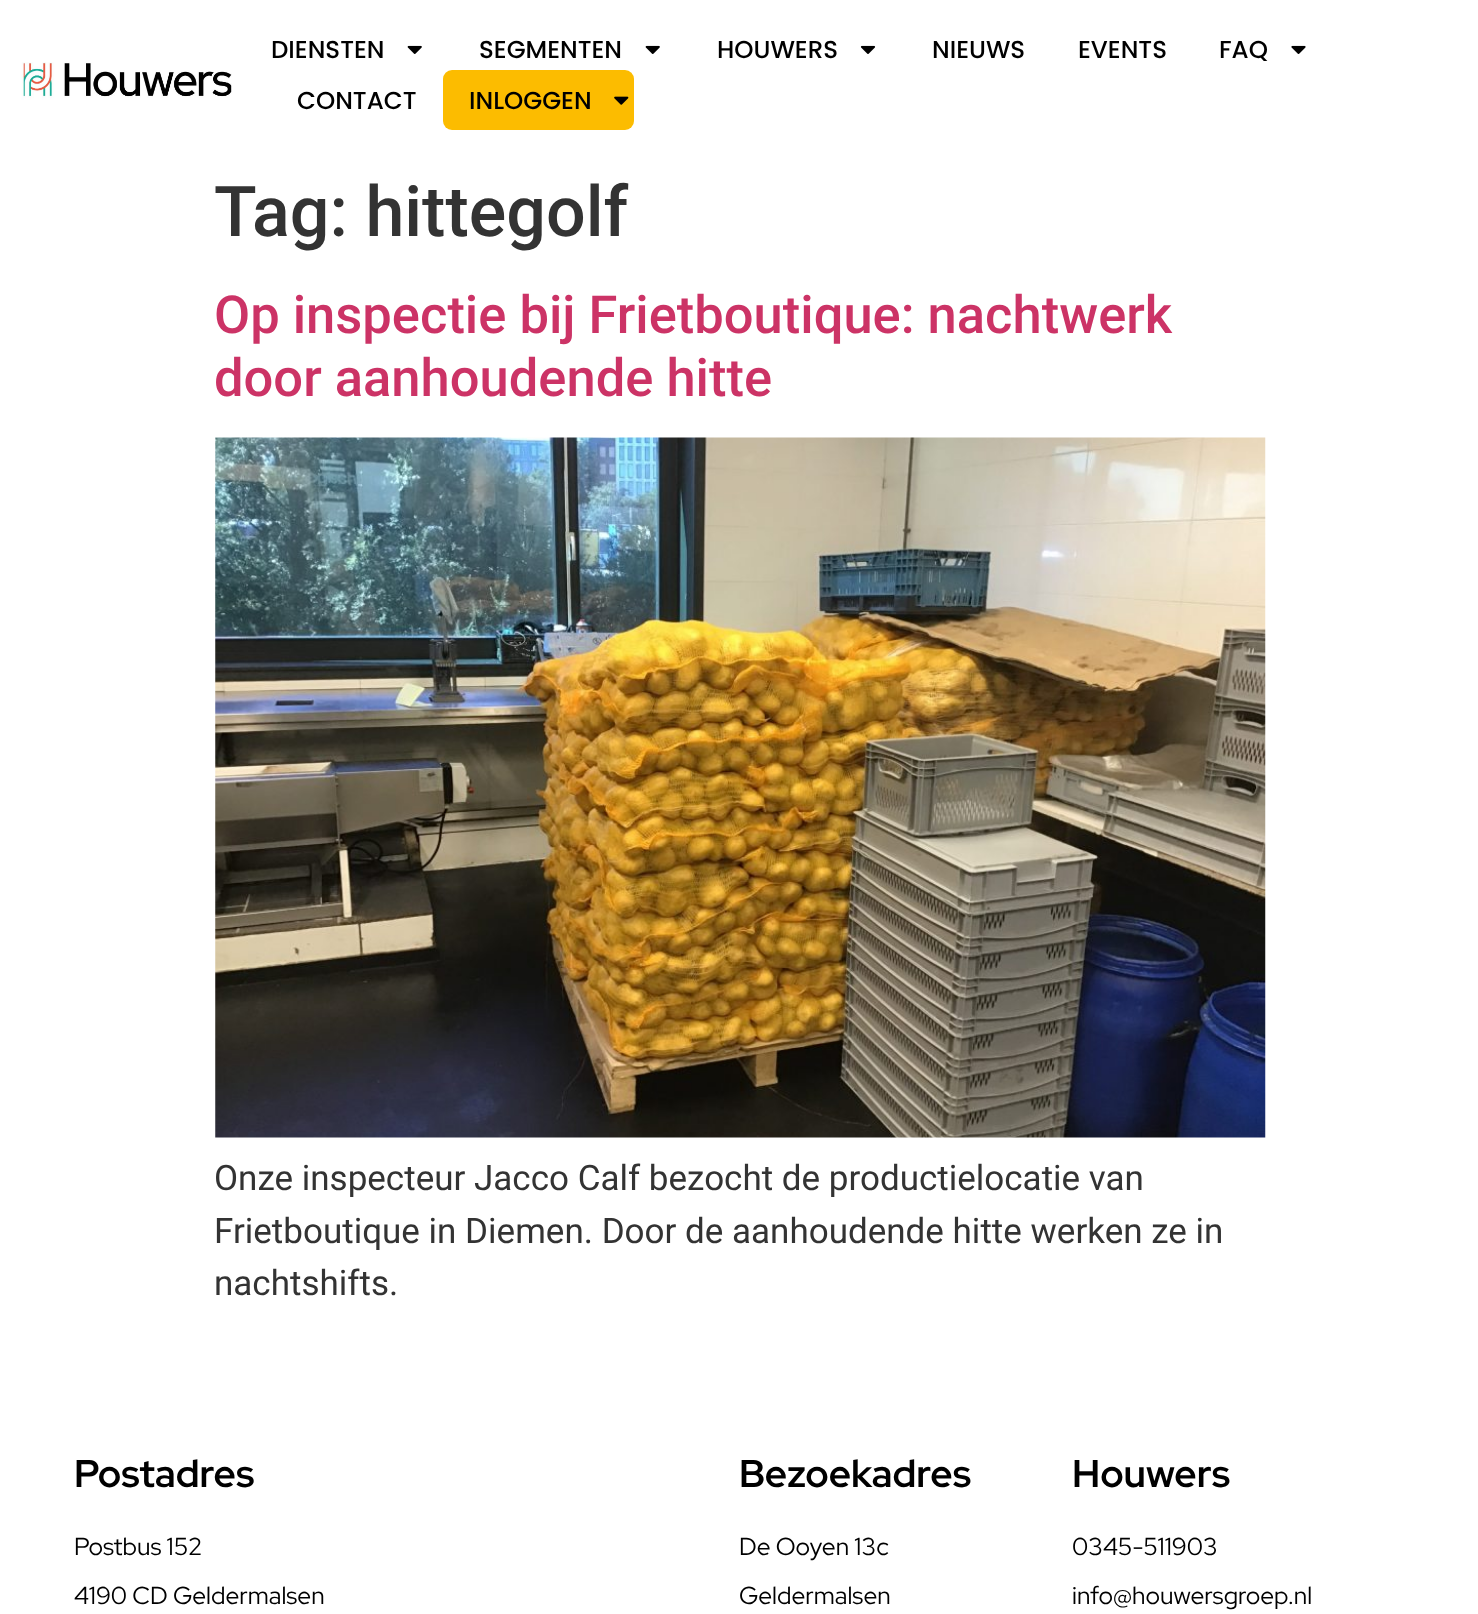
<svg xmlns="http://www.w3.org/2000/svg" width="1478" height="1614">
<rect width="100%" height="100%" fill="#fff"/>
<image x="21" y="62" width="211" height="38" href="media/1.png"/>
<text x="271" y="58" style="font-family:Poppins;font-size:24.5px;font-weight:500;fill:#000">DIENSTEN</text>
<image x="407" y="45" width="15" height="9" href="media/2.png"/>
<text x="479" y="58" style="font-family:Poppins;font-size:24.5px;font-weight:500;fill:#000">SEGMENTEN</text>
<image x="645" y="45" width="15" height="9" href="media/2.png"/>
<text x="717" y="58" style="font-family:Poppins;font-size:24.5px;font-weight:500;fill:#000">HOUWERS</text>
<image x="860" y="45" width="16" height="9" href="media/3.png"/>
<text x="932" y="58" style="font-family:Poppins;font-size:24.5px;font-weight:500;fill:#000">NIEUWS</text>
<text x="1078" y="58" style="font-family:Poppins;font-size:24.5px;font-weight:500;fill:#000">EVENTS</text>
<text x="1219" y="58" style="font-family:Poppins;font-size:24.5px;font-weight:500;fill:#000">FAQ</text>
<image x="1291" y="45" width="15" height="9" href="media/4.png"/>
<text x="297" y="109" style="font-family:Poppins;font-size:24.5px;font-weight:500;fill:#000">CONTACT</text>
<rect x="443" y="70" width="191" height="60" rx="9" fill="#fcbc00"/>
<text x="469" y="109" style="font-family:Poppins;font-size:24.5px;font-weight:500;fill:#000">INLOGGEN</text>
<image x="614" y="96" width="15" height="9" href="media/5.png"/>
<text x="214" y="236" style="font-family:Roboto;font-size:70px;font-weight:500;fill:#333">Tag: hittegolf</text>
<text x="214" y="333" style="font-family:Roboto;font-size:52.5px;font-weight:500;fill:#c36">Op inspectie bij Frietboutique: nachtwerk</text>
<text x="214" y="396" style="font-family:Roboto;font-size:52.5px;font-weight:500;fill:#c36">door aanhoudende hitte</text>
<image x="215" y="437" width="1051" height="701" href="media/6.png"/>
<text x="214" y="1190" style="font-family:Roboto;font-size:35px;fill:#333">Onze inspecteur Jacco Calf bezocht de productielocatie van</text>
<text x="214" y="1243" style="font-family:Roboto;font-size:35px;fill:#333">Frietboutique in Diemen. Door de aanhoudende hitte werken ze in</text>
<text x="214" y="1295" style="font-family:Roboto;font-size:35px;fill:#333">nachtshifts.</text>
<text x="74" y="1487" style="font-family:Red Hat Display;font-size:38.5px;font-weight:bold;fill:#000">Postadres</text>
<text x="74" y="1555" style="font-family:Red Hat Display;font-size:24.5px;fill:#000">Postbus 152</text>
<text x="74" y="1604" style="font-family:Red Hat Display;font-size:24.5px;fill:#000">4190 CD Geldermalsen</text>
<text x="739" y="1487" style="font-family:Red Hat Display;font-size:38.5px;font-weight:bold;fill:#000">Bezoekadres</text>
<text x="739" y="1555" style="font-family:Red Hat Display;font-size:24.5px;fill:#000">De Ooyen 13c</text>
<text x="739" y="1604" style="font-family:Red Hat Display;font-size:24.5px;fill:#000">Geldermalsen</text>
<text x="1072" y="1487" style="font-family:Red Hat Display;font-size:38.5px;font-weight:bold;fill:#000">Houwers</text>
<text x="1072" y="1555" style="font-family:Red Hat Display;font-size:24.5px;fill:#000">0345-511903</text>
<text x="1072" y="1604" style="font-family:Red Hat Display;font-size:24.5px;fill:#000">info@houwersgroep.nl</text>
</svg>
